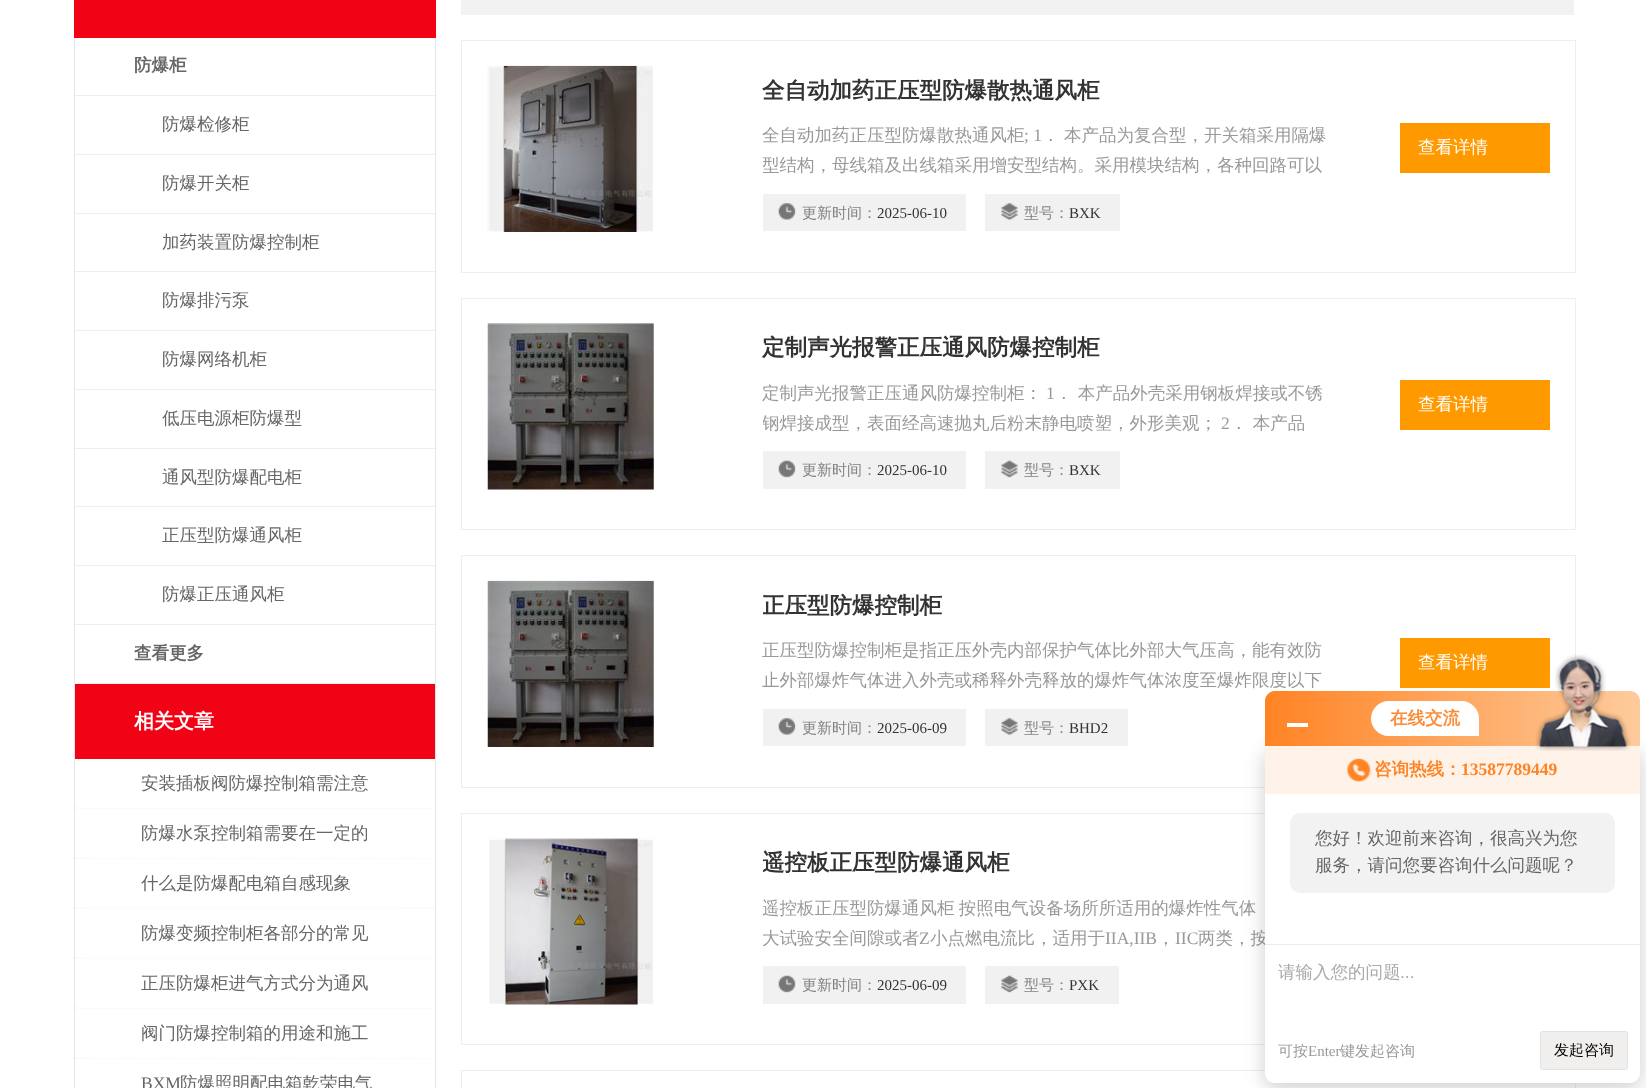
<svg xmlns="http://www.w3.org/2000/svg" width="1646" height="1088">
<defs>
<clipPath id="clip1"><rect x="763" y="121" width="567" height="60"/></clipPath>
<clipPath id="clip2"><rect x="763" y="379" width="567" height="60"/></clipPath>
<clipPath id="clip3"><rect x="763" y="586" width="567" height="38"/></clipPath>
<clipPath id="clip4"><rect x="763" y="844" width="567" height="37"/></clipPath>
<clipPath id="clip5"><rect x="763" y="894" width="567" height="60"/></clipPath>
<linearGradient id="g1" gradientUnits="userSpaceOnUse" x1="1265" y1="719" x2="1640" y2="719"><stop offset="0" stop-color="#ff8324"/><stop offset="1" stop-color="#fecb9c"/></linearGradient>
</defs>
<rect width="100%" height="100%" fill="#fff"/>
<rect x="74" width="362" height="38" fill="#f10215"/>
<rect x="435" y="38" width="1" height="1050" fill="#e5e5e5"/>
<rect x="74" y="38" width="1" height="1050" fill="#e5e5e5"/>
<rect x="75" y="95" width="360" height="1" fill="#eee"/>
<text x="134" y="71" style="font-family:WenQuanYi Zen Hei;font-size:17.5px;font-weight:bold;fill:#666">防爆柜</text>
<rect x="75" y="154" width="360" height="1" fill="#eee"/>
<text x="162" y="130" style="font-family:WenQuanYi Zen Hei;font-size:17.5px;font-weight:500;fill:#666">防爆检修柜</text>
<rect x="75" y="213" width="360" height="1" fill="#eee"/>
<text x="162" y="189" style="font-family:WenQuanYi Zen Hei;font-size:17.5px;font-weight:500;fill:#666">防爆开关柜</text>
<rect x="75" y="271" width="360" height="1" fill="#eee"/>
<text x="162" y="248" style="font-family:WenQuanYi Zen Hei;font-size:17.5px;font-weight:500;fill:#666">加药装置防爆控制柜</text>
<rect x="75" y="330" width="360" height="1" fill="#eee"/>
<text x="162" y="306" style="font-family:WenQuanYi Zen Hei;font-size:17.5px;font-weight:500;fill:#666">防爆排污泵</text>
<rect x="75" y="389" width="360" height="1" fill="#eee"/>
<text x="162" y="365" style="font-family:WenQuanYi Zen Hei;font-size:17.5px;font-weight:500;fill:#666">防爆网络机柜</text>
<rect x="75" y="448" width="360" height="1" fill="#eee"/>
<text x="162" y="424" style="font-family:WenQuanYi Zen Hei;font-size:17.5px;font-weight:500;fill:#666">低压电源柜防爆型</text>
<rect x="75" y="506" width="360" height="1" fill="#eee"/>
<text x="162" y="483" style="font-family:WenQuanYi Zen Hei;font-size:17.5px;font-weight:500;fill:#666">通风型防爆配电柜</text>
<rect x="75" y="565" width="360" height="1" fill="#eee"/>
<text x="162" y="541" style="font-family:WenQuanYi Zen Hei;font-size:17.5px;font-weight:500;fill:#666">正压型防爆通风柜</text>
<rect x="75" y="624" width="360" height="1" fill="#eee"/>
<text x="162" y="600" style="font-family:WenQuanYi Zen Hei;font-size:17.5px;font-weight:500;fill:#666">防爆正压通风柜</text>
<rect x="75" y="683" width="360" height="1" fill="#eee"/>
<text x="134" y="659" style="font-family:WenQuanYi Zen Hei;font-size:17.5px;font-weight:bold;fill:#666">查看更多</text>
<rect x="75" y="684" width="360" height="75" fill="#f10215"/>
<text x="134" y="728" style="font-family:WenQuanYi Zen Hei;font-size:20px;font-weight:bold;fill:#fff">相关文章</text>
<path d="M75 808h360" fill="none" stroke="#eee" stroke-width="1.2" stroke-dasharray="1.25 1.25"/>
<rect x="82" y="807" width="352" height="1" fill="#fff"/>
<text x="141" y="789" style="font-family:WenQuanYi Zen Hei;font-size:17.5px;font-weight:500;fill:#666">安装插板阀防爆控制箱需注意</text>
<path d="M75 858h360" fill="none" stroke="#eee" stroke-width="1.2" stroke-dasharray="1.25 1.25"/>
<rect x="82" y="857" width="352" height="1" fill="#fff"/>
<text x="141" y="839" style="font-family:WenQuanYi Zen Hei;font-size:17.5px;font-weight:500;fill:#666">防爆水泵控制箱需要在一定的</text>
<path d="M75 908h360" fill="none" stroke="#eee" stroke-width="1.2" stroke-dasharray="1.25 1.25"/>
<rect x="82" y="907" width="319" height="1" fill="#fff"/>
<text x="141" y="889" style="font-family:WenQuanYi Zen Hei;font-size:17.5px;font-weight:500;fill:#666">什么是防爆配电箱自感现象</text>
<path d="M75 958h360" fill="none" stroke="#eee" stroke-width="1.2" stroke-dasharray="1.25 1.25"/>
<rect x="82" y="957" width="352" height="1" fill="#fff"/>
<text x="141" y="939" style="font-family:WenQuanYi Zen Hei;font-size:17.5px;font-weight:500;fill:#666">防爆变频控制柜各部分的常见</text>
<path d="M75 1008h360" fill="none" stroke="#eee" stroke-width="1.2" stroke-dasharray="1.25 1.25"/>
<rect x="82" y="1007" width="352" height="1" fill="#fff"/>
<text x="141" y="989" style="font-family:WenQuanYi Zen Hei;font-size:17.5px;font-weight:500;fill:#666">正压防爆柜进气方式分为通风</text>
<path d="M75 1058h360" fill="none" stroke="#eee" stroke-width="1.2" stroke-dasharray="1.25 1.25"/>
<rect x="82" y="1057" width="352" height="1" fill="#fff"/>
<text x="141" y="1039" style="font-family:WenQuanYi Zen Hei;font-size:17.5px;font-weight:500;fill:#666">阀门防爆控制箱的用途和施工</text>
<text x="141" y="1089" style="font-family:Liberation Serif;font-size:17.5px;fill:#666">BXM</text>
<text x="180" y="1089" style="font-family:WenQuanYi Zen Hei;font-size:17.5px;font-weight:500;fill:#666">防爆照明配电箱乾荣电气</text>
<rect x="461" width="1113" height="15" fill="#f2f2f2"/>
<rect x="461.5" y="40.5" width="1114" height="232" fill="none" stroke="#eee"/>
<image x="487" y="65" width="166" height="167" href="media/1.png"/>
<text x="762" y="98" style="font-family:WenQuanYi Zen Hei;font-size:22.5px;font-weight:bold;fill:#333">全自动加药正压型防爆散热通风柜</text>
<text x="762" y="141" style="font-family:WenQuanYi Zen Hei;font-size:17.5px;font-weight:500;fill:#999">全自动加药正压型防爆散热通风柜</text>
<text x="1024" y="141" style="font-family:Liberation Serif;font-size:17.5px;fill:#999">; 1</text>
<text x="1042" y="141" style="font-family:WenQuanYi Zen Hei;font-size:17.5px;font-weight:500;fill:#999">．</text>
<text x="1064" y="141" style="font-family:WenQuanYi Zen Hei;font-size:17.5px;font-weight:500;fill:#999">本产品为复合型，开关箱采用隔爆</text>
<g clip-path="url(#clip1)">
<text x="762" y="171" style="font-family:WenQuanYi Zen Hei;font-size:17.5px;font-weight:500;fill:#999">型结构，母线箱及出线箱采用增安型结构。采用模块结构，各种回路可以</text>
</g>
<rect x="763" y="194" width="203" height="37" fill="#f1f1f1"/>
<image x="778" y="203" width="18" height="17" href="media/2.png"/>
<text x="802" y="218" style="font-family:WenQuanYi Zen Hei;font-size:15px;font-weight:500;fill:#828282">更新时间：</text>
<text x="877" y="218" style="font-family:Liberation Serif;font-size:15px;fill:#333">2025-06-10</text>
<rect x="985" y="194" width="135" height="37" fill="#f1f1f1"/>
<image x="1001" y="203" width="17" height="17" href="media/3.png"/>
<text x="1024" y="218" style="font-family:WenQuanYi Zen Hei;font-size:15px;font-weight:500;fill:#828282">型号：</text>
<text x="1069" y="218" style="font-family:Liberation Serif;font-size:15px;fill:#333">BXK</text>
<rect x="1400" y="123" width="150" height="50" fill="#f90"/>
<text x="1418" y="153" style="font-family:WenQuanYi Zen Hei;font-size:17.5px;font-weight:500;fill:#fff">查看详情</text>
<rect x="461.5" y="298.5" width="1114" height="231" fill="none" stroke="#eee"/>
<image x="487" y="323" width="167" height="167" href="media/4.png"/>
<text x="762" y="355" style="font-family:WenQuanYi Zen Hei;font-size:22.5px;font-weight:bold;fill:#333">定制声光报警正压通风防爆控制柜</text>
<text x="762" y="399" style="font-family:WenQuanYi Zen Hei;font-size:17.5px;font-weight:500;fill:#999">定制声光报警正压通风防爆控制柜：</text>
<text x="1046" y="399" style="font-family:Liberation Serif;font-size:17.5px;fill:#999">1</text>
<text x="1055" y="399" style="font-family:WenQuanYi Zen Hei;font-size:17.5px;font-weight:500;fill:#999">． 本产品外壳采用钢板焊接或不锈</text>
<g clip-path="url(#clip2)">
<text x="762" y="429" style="font-family:WenQuanYi Zen Hei;font-size:17.5px;font-weight:500;fill:#999">钢焊接成型，表面经高速抛丸后粉末静电喷塑，外形美观；</text>
</g>
<text x="1221" y="429" style="font-family:Liberation Serif;font-size:17.5px;fill:#999">2</text>
<text x="1230" y="429" style="font-family:WenQuanYi Zen Hei;font-size:17.5px;font-weight:500;fill:#999">． 本产品</text>
<rect x="763" y="451" width="203" height="38" fill="#f1f1f1"/>
<image x="778" y="460" width="18" height="18" href="media/5.png"/>
<text x="802" y="475" style="font-family:WenQuanYi Zen Hei;font-size:15px;font-weight:500;fill:#828282">更新时间：</text>
<text x="877" y="475" style="font-family:Liberation Serif;font-size:15px;fill:#333">2025-06-10</text>
<rect x="985" y="451" width="135" height="38" fill="#f1f1f1"/>
<image x="1001" y="460" width="17" height="18" href="media/6.png"/>
<text x="1024" y="475" style="font-family:WenQuanYi Zen Hei;font-size:15px;font-weight:500;fill:#828282">型号：</text>
<text x="1069" y="475" style="font-family:Liberation Serif;font-size:15px;fill:#333">BXK</text>
<rect x="1400" y="380" width="150" height="50" fill="#f90"/>
<text x="1418" y="410" style="font-family:WenQuanYi Zen Hei;font-size:17.5px;font-weight:500;fill:#fff">查看详情</text>
<rect x="461.5" y="555.5" width="1114" height="232" fill="none" stroke="#eee"/>
<image x="487" y="580" width="167" height="167" href="media/7.png"/>
<g clip-path="url(#clip3)">
<text x="762" y="613" style="font-family:WenQuanYi Zen Hei;font-size:22.5px;font-weight:bold;fill:#333">正压型防爆控制柜</text>
</g>
<text x="762" y="656" style="font-family:WenQuanYi Zen Hei;font-size:17.5px;font-weight:500;fill:#999">正压型防爆控制柜是指正压外壳内部保护气体比外部大气压高，能有效防</text>
<text x="762" y="686" style="font-family:WenQuanYi Zen Hei;font-size:17.5px;font-weight:500;fill:#999">止外部爆炸气体进入外壳或稀释外壳释放的爆炸气体浓度至爆炸限度以下</text>
<rect x="763" y="709" width="203" height="37" fill="#f1f1f1"/>
<image x="778" y="718" width="18" height="17" href="media/2.png"/>
<text x="802" y="733" style="font-family:WenQuanYi Zen Hei;font-size:15px;font-weight:500;fill:#828282">更新时间：</text>
<text x="877" y="733" style="font-family:Liberation Serif;font-size:15px;fill:#333">2025-06-09</text>
<rect x="985" y="709" width="143" height="37" fill="#f1f1f1"/>
<image x="1001" y="718" width="17" height="17" href="media/3.png"/>
<text x="1024" y="733" style="font-family:WenQuanYi Zen Hei;font-size:15px;font-weight:500;fill:#828282">型号：</text>
<text x="1069" y="733" style="font-family:Liberation Serif;font-size:15px;fill:#333">BHD2</text>
<rect x="1400" y="638" width="150" height="50" fill="#f90"/>
<text x="1418" y="668" style="font-family:WenQuanYi Zen Hei;font-size:17.5px;font-weight:500;fill:#fff">查看详情</text>
<rect x="461.5" y="813.5" width="1114" height="231" fill="none" stroke="#eee"/>
<image x="489" y="838" width="164" height="167" href="media/8.png"/>
<g clip-path="url(#clip4)">
<text x="762" y="870" style="font-family:WenQuanYi Zen Hei;font-size:22.5px;font-weight:bold;fill:#333">遥控板正压型防爆通风柜</text>
</g>
<g clip-path="url(#clip5)">
<text x="762" y="914" word-spacing="-1" style="font-family:WenQuanYi Zen Hei;font-size:17.5px;font-weight:500;fill:#999">遥控板正压型防爆通风柜 按照电气设备场所所适用的爆炸性气体</text>
</g>
<text x="762" y="944" style="font-family:WenQuanYi Zen Hei;font-size:17.5px;font-weight:500;fill:#999">大试验安全间隙或者</text>
<text x="919" y="944" style="font-family:Liberation Serif;font-size:17.5px;fill:#999">Z</text>
<text x="930" y="944" style="font-family:WenQuanYi Zen Hei;font-size:17.5px;font-weight:500;fill:#999">小点燃电流比，适用于</text>
<text x="1105" y="944" style="font-family:Liberation Serif;font-size:17.5px;fill:#999">IIA,IIB</text>
<text x="1157" y="944" style="font-family:WenQuanYi Zen Hei;font-size:17.5px;font-weight:500;fill:#999">，</text>
<text x="1175" y="944" style="font-family:Liberation Serif;font-size:17.5px;fill:#999">IIC</text>
<text x="1198" y="944" style="font-family:WenQuanYi Zen Hei;font-size:17.5px;font-weight:500;fill:#999">两类，按</text>
<rect x="763" y="966" width="203" height="38" fill="#f1f1f1"/>
<image x="778" y="975" width="18" height="18" href="media/9.png"/>
<text x="802" y="990" style="font-family:WenQuanYi Zen Hei;font-size:15px;font-weight:500;fill:#828282">更新时间：</text>
<text x="877" y="990" style="font-family:Liberation Serif;font-size:15px;fill:#333">2025-06-09</text>
<rect x="985" y="966" width="134" height="38" fill="#f1f1f1"/>
<image x="1001" y="975" width="17" height="18" href="media/10.png"/>
<text x="1024" y="990" style="font-family:WenQuanYi Zen Hei;font-size:15px;font-weight:500;fill:#828282">型号：</text>
<text x="1069" y="990" style="font-family:Liberation Serif;font-size:15px;fill:#333">PXK</text>
<rect x="461.5" y="1070.5" width="1114" height="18" fill="none" stroke="#eee"/>
<rect x="1265" y="751" width="375" height="337" rx="10" fill="#00000033" filter="blur(10px)"/>
<path d="M1275 691h355c5.5 0 10 4.5 10 10v45h-375v-45c0-5.5 4.5-10 10-10z" fill="url(#g1)"/>
<rect x="1287" y="723" width="21" height="4" fill="#fff"/>
<path d="M1388.5 701h73c9.5 0 17.5 8 17.5 17.5v17.5h-90.5c-9.5 0-17.5-8-17.5-17.5c0-9.5 8-17.5 17.5-17.5z" fill="#fff"/>
<text x="1390" y="724" style="font-family:WenQuanYi Zen Hei;font-size:17.5px;font-weight:bold;fill:#fb8b36">在线交流</text>
<path d="M1265 746h375v327c0 5.5-4.5 10-10 10h-355c-5.5 0-10-4.5-10-10z" fill="#fff"/>
<rect x="1265" y="746" width="375" height="48" fill="#fff3e9"/>
<image x="1535" y="654" width="96" height="97" href="media/11.png"/>
<image x="1347" y="758" width="24" height="24" href="media/12.png"/>
<text x="1374" y="775" style="font-family:WenQuanYi Zen Hei;font-size:17.5px;font-weight:bold;fill:#ff8426">咨询热线：</text>
<text x="1461" y="775" style="font-family:Liberation Serif;font-size:17.5px;font-weight:bold;fill:#ff8426">13587789449</text>
<rect x="1290" y="813" width="325" height="80" rx="10" fill="#f2f2f2"/>
<text x="1315" y="844" style="font-family:WenQuanYi Zen Hei;font-size:17.5px;font-weight:500;fill:#666">您好！欢迎前来咨询，很高兴为您</text>
<text x="1315" y="871" style="font-family:WenQuanYi Zen Hei;font-size:17.5px;font-weight:500;fill:#666">服务，请问您要咨询什么问题呢？</text>
<rect x="1265" y="944" width="375" height="1" fill="#eaeaea"/>
<text x="1278" y="978" style="font-family:WenQuanYi Zen Hei;font-size:17.5px;font-weight:500;fill:#aaa">请输入您的问题</text>
<text x="1400" y="978" style="font-family:Liberation Sans;font-size:17.5px;fill:#aaa">...</text>
<text x="1278" y="1056" style="font-family:WenQuanYi Zen Hei;font-size:15px;font-weight:500;fill:#999">可按</text>
<text x="1308" y="1056" style="font-family:Liberation Serif;font-size:15px;fill:#999">Enter</text>
<text x="1340" y="1056" style="font-family:WenQuanYi Zen Hei;font-size:15px;font-weight:500;fill:#999">键发起咨询</text>
<rect x="1540.5" y="1031.5" width="87" height="38" rx="2" fill="#f0efed" stroke="#e2e2e2"/>
<text x="1554" y="1055" style="font-family:WenQuanYi Zen Hei;font-size:15px;font-weight:500;fill:#000">发起咨询</text>
</svg>
